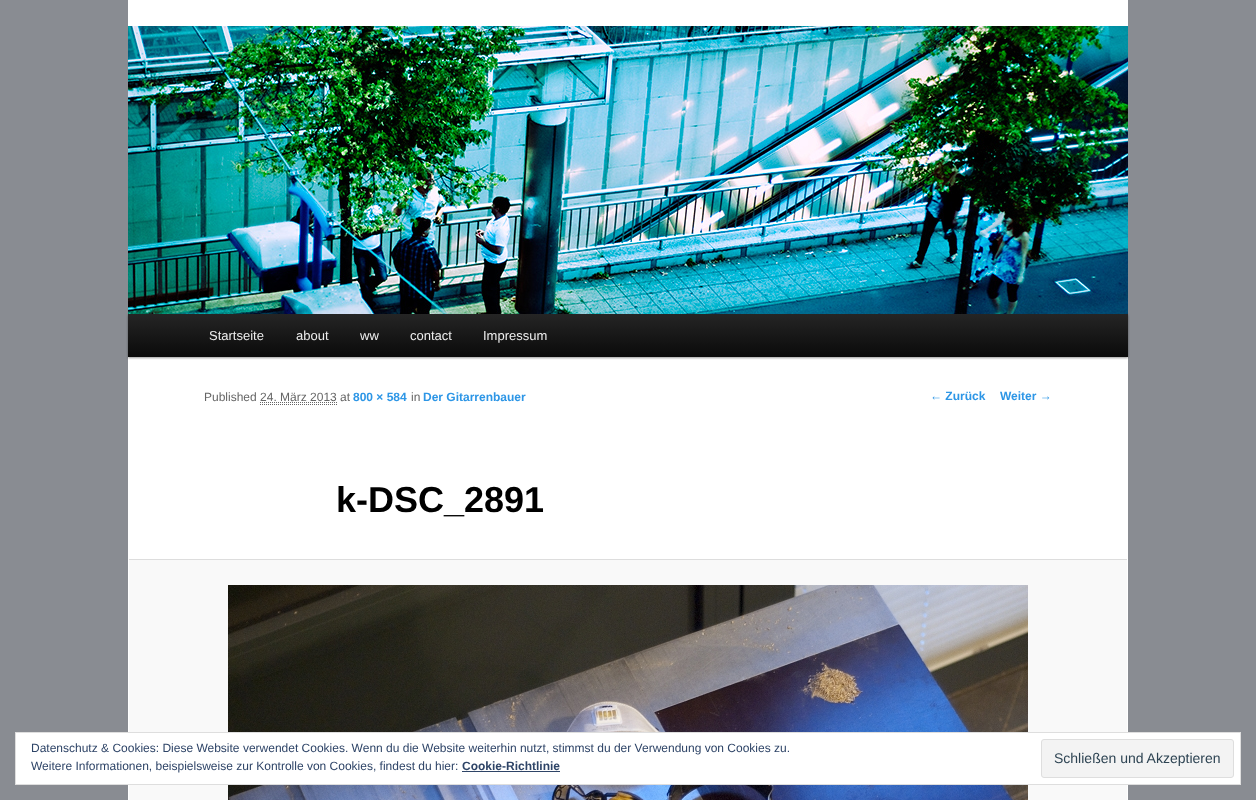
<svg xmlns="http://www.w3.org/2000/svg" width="1256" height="800">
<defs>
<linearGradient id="g1" gradientUnits="userSpaceOnUse" x1="628" y1="314" x2="628" y2="357"><stop offset="0" stop-color="#252525"/><stop offset="1" stop-color="#0a0a0a"/></linearGradient>
</defs>
<rect width="100%" height="100%" fill="#898c92"/>
<rect x="128" width="1000" height="800" fill="#fff"/>
<rect x="128" y="315" width="1000" height="43" fill="#00000066" filter="blur(1px)"/>
<image x="128" y="26" width="1000" height="288" href="media/1.png"/>
<rect x="128" y="314" width="1000" height="43" fill="url(#g1)"/>
<text x="209" y="340" style="font-family:Liberation Sans;font-size:13px;fill:#eee">Startseite</text>
<text x="296" y="340" style="font-family:Liberation Sans;font-size:13px;fill:#eee">about</text>
<text x="360" y="340" style="font-family:Liberation Sans;font-size:13px;fill:#eee">ww</text>
<text x="410" y="340" style="font-family:Liberation Sans;font-size:13px;fill:#eee">contact</text>
<text x="483" y="340" style="font-family:Liberation Sans;font-size:13px;fill:#eee">Impressum</text>
<text x="204" y="401" style="font-family:Liberation Sans;font-size:12px;fill:#666">Published 24. März 2013 at</text>
<text x="353" y="401" style="font-family:Liberation Sans;font-size:12px;font-weight:bold;fill:#2d96e6">800 × 584</text>
<text x="411" y="401" style="font-family:Liberation Sans;font-size:12px;fill:#666">in</text>
<text x="423" y="401" style="font-family:Liberation Sans;font-size:12px;font-weight:bold;fill:#2d96e6">Der Gitarrenbauer</text>
<path d="M260 402.5h77" fill="none" stroke="#666" stroke-dasharray="1 1"/>
<path d="M260 404.5h77" fill="none" stroke="#666" stroke-dasharray="1 1"/>
<text x="336" y="512" style="font-family:Liberation Sans;font-size:36px;font-weight:bold;fill:#000">k-DSC_2891</text>
<rect x="129" y="560" width="998" height="240" fill="#f9f9f9"/>
<rect x="129" y="559" width="998" height="1" fill="#ddd"/>
<image x="228" y="585" width="800" height="215" href="media/2.png"/>
<text x="930" y="400" style="font-family:Liberation Sans;font-size:12px;font-weight:bold;fill:#2d96e6">← Zurück</text>
<text x="1000" y="400" style="font-family:Liberation Sans;font-size:12px;font-weight:bold;fill:#2d96e6">Weiter →</text>
<rect x="15.5" y="732.5" width="1225" height="52" fill="#fff" stroke="#dedede"/>
<text x="31" y="752" style="font-family:Liberation Sans;font-size:12px;fill:#2e4467">Datenschutz &amp; Cookies: Diese Website verwendet Cookies. Wenn du die Website weiterhin nutzt, stimmst du der Verwendung von Cookies zu.</text>
<text x="31" y="770" style="font-family:Liberation Sans;font-size:12px;fill:#2e4467">Weitere Informationen, beispielsweise zur Kontrolle von Cookies, findest du hier:</text>
<text x="462" y="770" style="font-family:Liberation Sans;font-size:12px;font-weight:bold;fill:#2e4467">Cookie-Richtlinie</text>
<rect x="462" y="771" width="98" height="1" fill="#2e4467"/>
<rect x="1041.5" y="739.5" width="192" height="38" rx="2.5" fill="#f3f3f3" stroke="#dedede"/>
<text x="1054" y="763" style="font-family:Liberation Sans;font-size:14px;fill:#2e4453">Schließen und Akzeptieren</text>
</svg>
